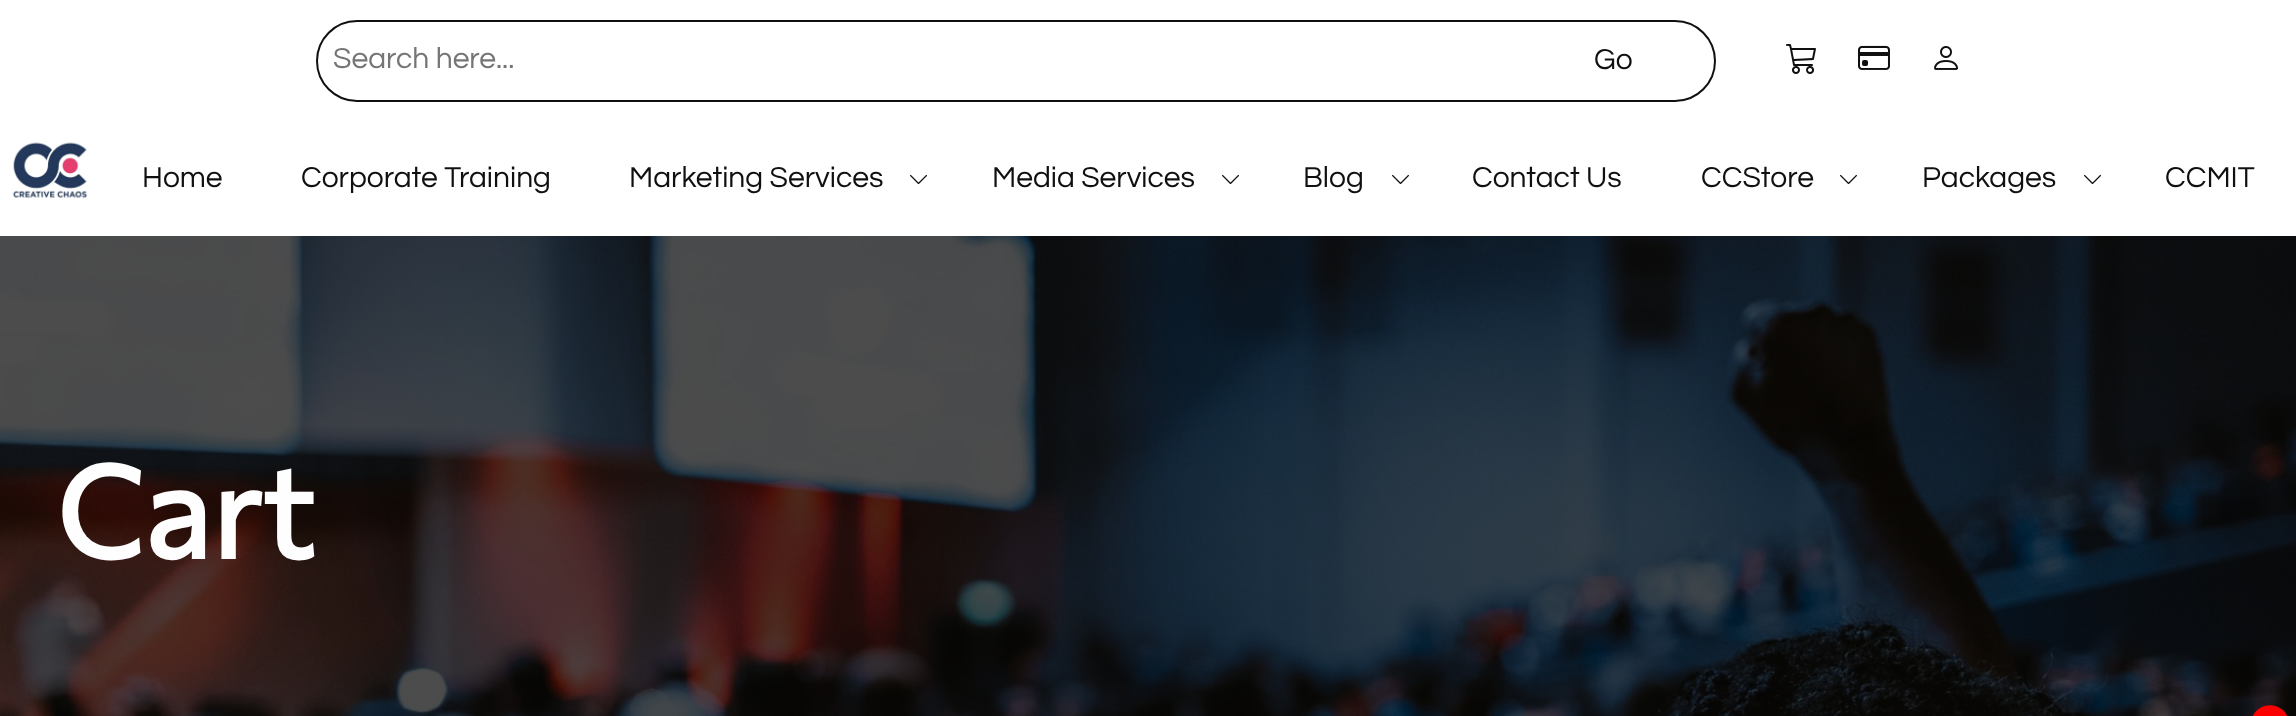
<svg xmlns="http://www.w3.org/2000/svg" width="2296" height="716">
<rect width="100%" height="100%" fill="#fff"/>
<rect x="317" y="21" width="1398" height="80" rx="40" fill="none" stroke="#101010" stroke-width="2"/>
<text x="333" y="68" style="font-family:Questrial;font-size:30px;fill:#757575">Search here...</text>
<text x="1594" y="69" style="font-family:Questrial;font-size:30px;fill:#101010">Go</text>
<image x="1786" y="44" width="30" height="30" href="media/1.png"/>
<image x="1858" y="45" width="32" height="25" href="media/2.png"/>
<image x="1934" y="46" width="24" height="24" href="media/3.png"/>
<image x="12" y="142" width="76" height="56" href="media/4.png"/>
<text x="142" y="187" style="font-family:Questrial;font-size:30px;fill:#101010">Home</text>
<text x="301" y="187" style="font-family:Questrial;font-size:30px;fill:#101010">Corporate Training</text>
<text x="629" y="187" style="font-family:Questrial;font-size:30px;fill:#101010">Marketing Services</text>
<image x="910" y="174" width="17" height="11" href="media/5.png"/>
<text x="992" y="187" style="font-family:Questrial;font-size:30px;fill:#101010">Media Services</text>
<image x="1222" y="174" width="17" height="11" href="media/5.png"/>
<text x="1303" y="187" style="font-family:Questrial;font-size:30px;fill:#101010">Blog</text>
<image x="1392" y="174" width="17" height="11" href="media/5.png"/>
<text x="1472" y="187" style="font-family:Questrial;font-size:30px;fill:#101010">Contact Us</text>
<text x="1701" y="187" style="font-family:Questrial;font-size:30px;fill:#101010">CCStore</text>
<image x="1840" y="174" width="17" height="11" href="media/5.png"/>
<text x="1922" y="187" style="font-family:Questrial;font-size:30px;fill:#101010">Packages</text>
<image x="2084" y="174" width="17" height="11" href="media/5.png"/>
<text x="2165" y="187" style="font-family:Questrial;font-size:30px;fill:#101010">CCMIT</text>
<image x="0" y="236" width="2296" height="480" href="media/6.png"/>
<text x="56" y="559" style="font-family:Commissioner;font-size:128px;font-weight:bold;fill:#fefefe">Cart</text>
<image x="2252" y="705" width="36" height="11" href="media/7.png"/>
</svg>
